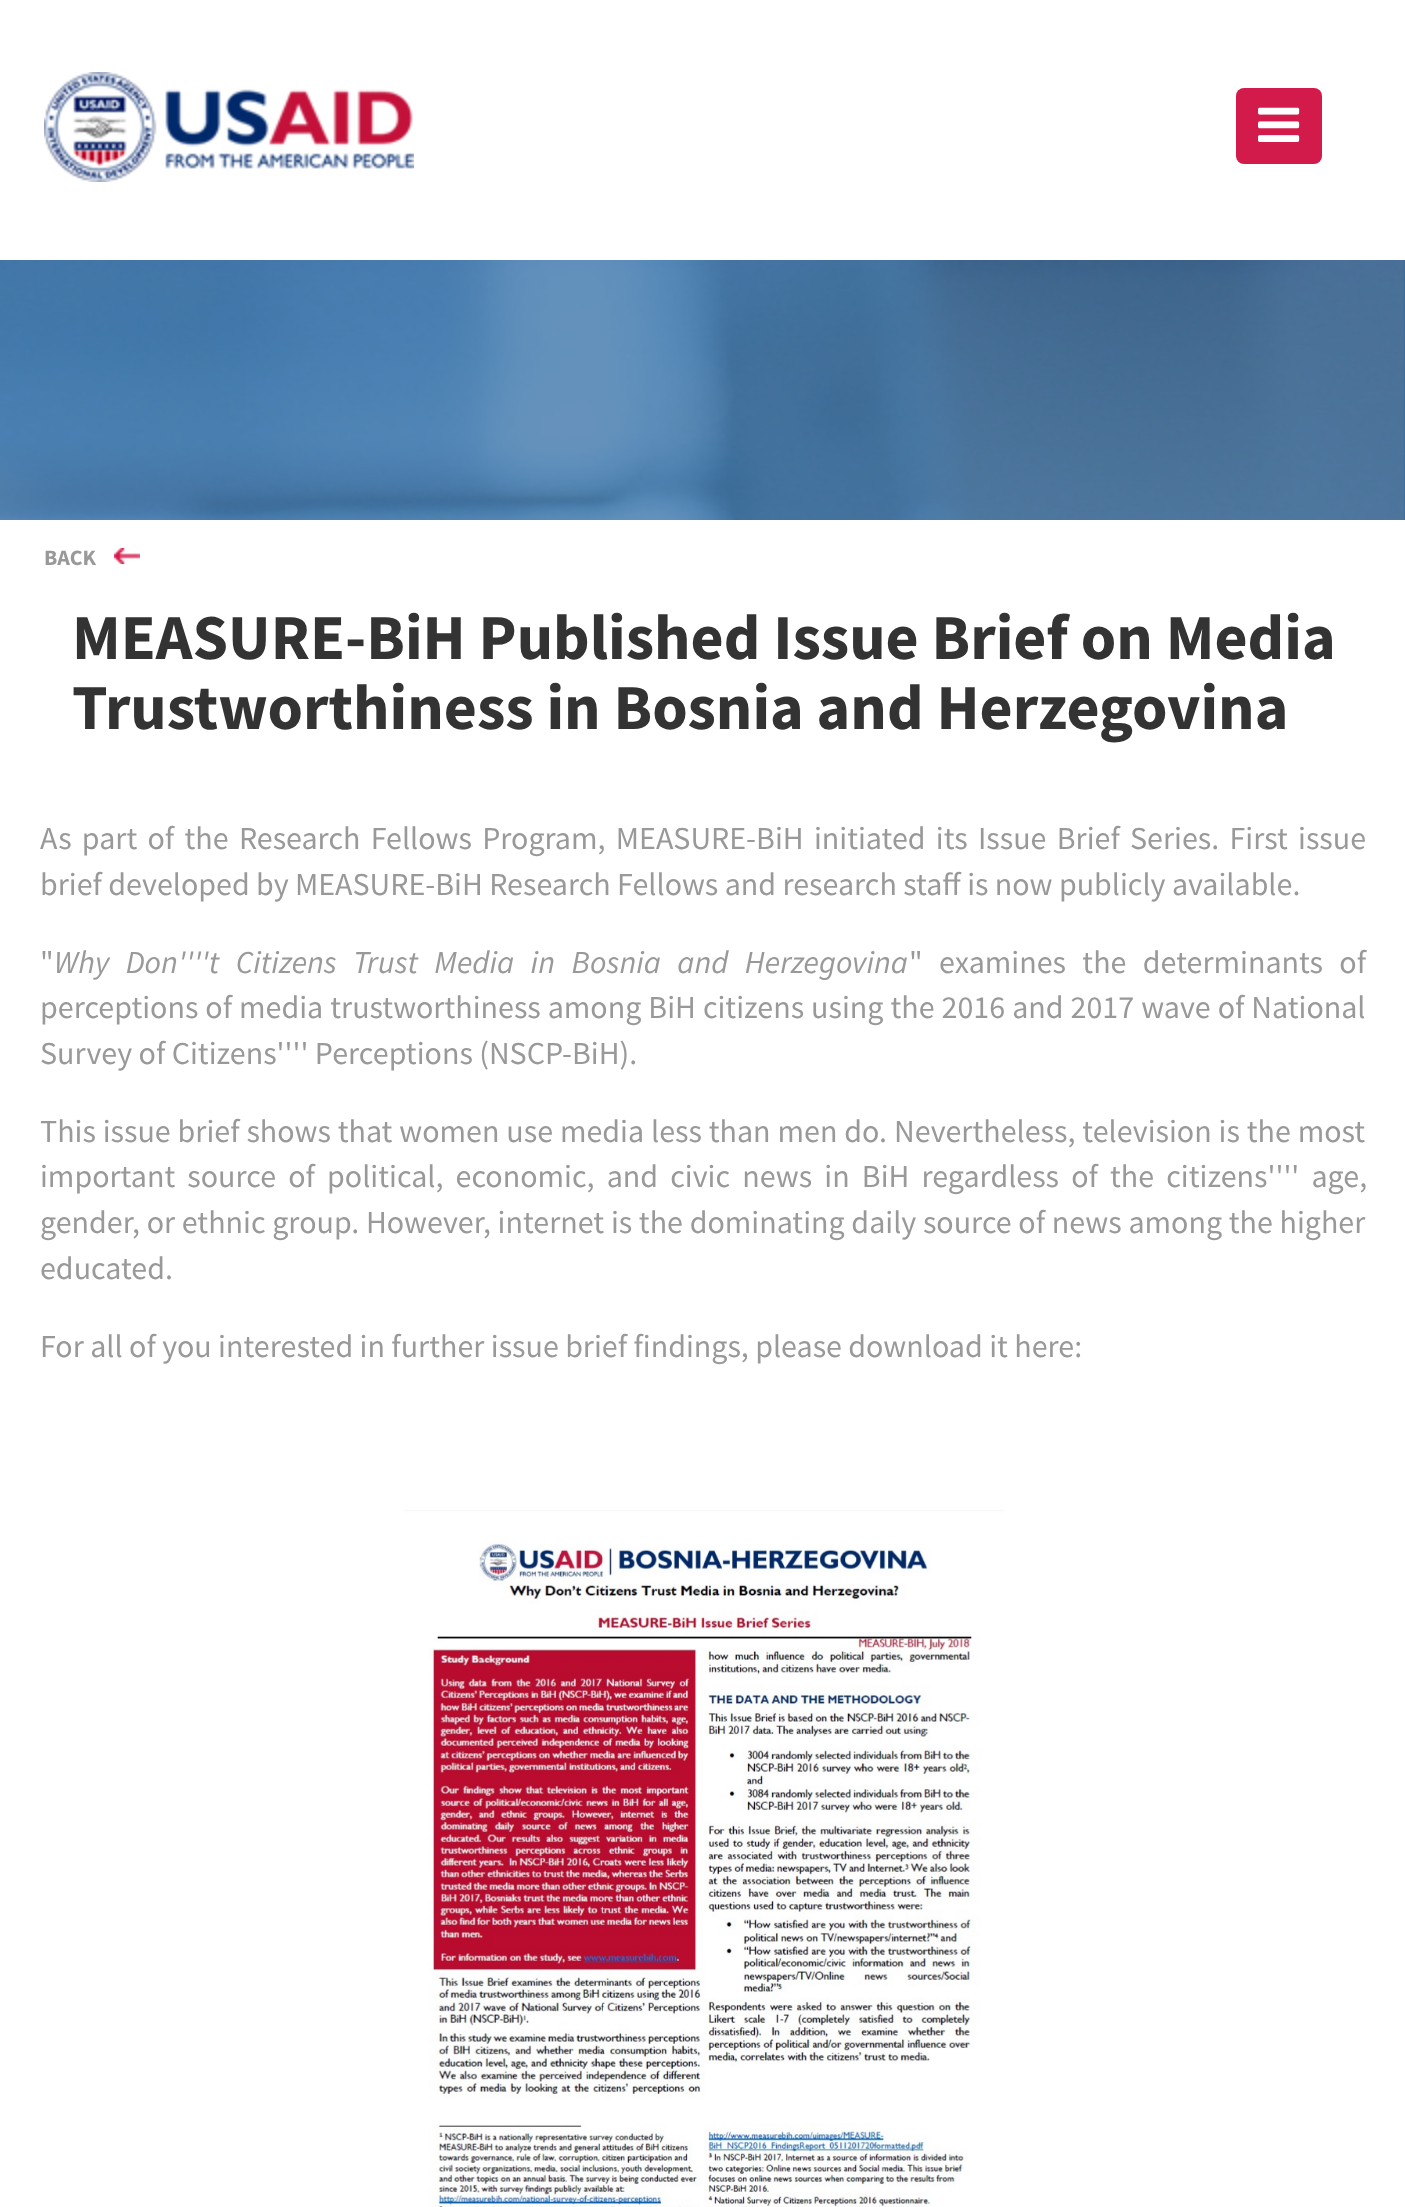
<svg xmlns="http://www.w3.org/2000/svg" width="1405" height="2207">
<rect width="100%" height="100%" fill="#fff"/>
<image x="44" y="72" width="370" height="110" href="media/1.png"/>
<rect x="1236" y="88" width="86" height="76" rx="8" fill="#d21b4b"/>
<image x="1258" y="107" width="42" height="35" href="media/2.png"/>
<rect y="260" width="1405" height="260" fill="#004890"/>
<image x="0" y="260" width="1405" height="260" href="media/3.png"/>
<image x="114" y="548" width="26" height="16" href="media/4.png"/>
<text x="44" y="565" style="font-family:Source Sans Pro;font-size:22px;font-weight:bold;fill:#999">BACK</text>
<text x="72" y="659" style="font-family:Source Sans Pro;font-size:64px;font-weight:bold;fill:#333">MEASURE-BiH Published Issue Brief on Media</text>
<text x="72" y="729" style="font-family:Source Sans Pro;font-size:64px;font-weight:bold;fill:#333">Trustworthiness in Bosnia and Herzegovina</text>
<text x="40" y="849" word-spacing="3.9" style="font-family:Source Sans Pro;font-size:32px;fill:#999">As part of the Research Fellows Program, MEASURE-BiH initiated its Issue Brief Series. First issue</text>
<text x="40" y="895" style="font-family:Source Sans Pro;font-size:32px;fill:#999">brief developed by MEASURE-BiH Research Fellows and research staff is now publicly available.</text>
<text x="40" y="973" style="font-family:Source Sans Pro;font-size:32px;fill:#999">"</text>
<text x="54" y="973" word-spacing="10" style="font-family:Source Sans Pro;font-size:32px;font-style:italic;fill:#999">Why Don''''t Citizens Trust Media in Bosnia and Herzegovina</text>
<text x="909" y="973" word-spacing="10" style="font-family:Source Sans Pro;font-size:32px;fill:#999">" examines the determinants of</text>
<text x="40" y="1018" word-spacing="0.6" style="font-family:Source Sans Pro;font-size:32px;fill:#999">perceptions of media trustworthiness among BiH citizens using the 2016 and 2017 wave of National</text>
<text x="40" y="1064" style="font-family:Source Sans Pro;font-size:32px;fill:#999">Survey of Citizens'''' Perceptions (NSCP-BiH).</text>
<text x="40" y="1142" word-spacing="0.5" style="font-family:Source Sans Pro;font-size:32px;fill:#999">This issue brief shows that women use media less than men do. Nevertheless, television is the most</text>
<text x="40" y="1187" word-spacing="5.75" style="font-family:Source Sans Pro;font-size:32px;fill:#999">important source of political, economic, and civic news in BiH regardless of the citizens'''' age,</text>
<text x="40" y="1233" word-spacing="0.3" style="font-family:Source Sans Pro;font-size:32px;fill:#999">gender, or ethnic group. However, internet is the dominating daily source of news among the higher</text>
<text x="40" y="1279" style="font-family:Source Sans Pro;font-size:32px;fill:#999">educated.</text>
<text x="40" y="1357" style="font-family:Source Sans Pro;font-size:32px;fill:#999">For all of you interested in further issue brief findings, please download it here:</text>
<image x="404" y="1510" width="600" height="697" href="media/5.png"/>
</svg>
